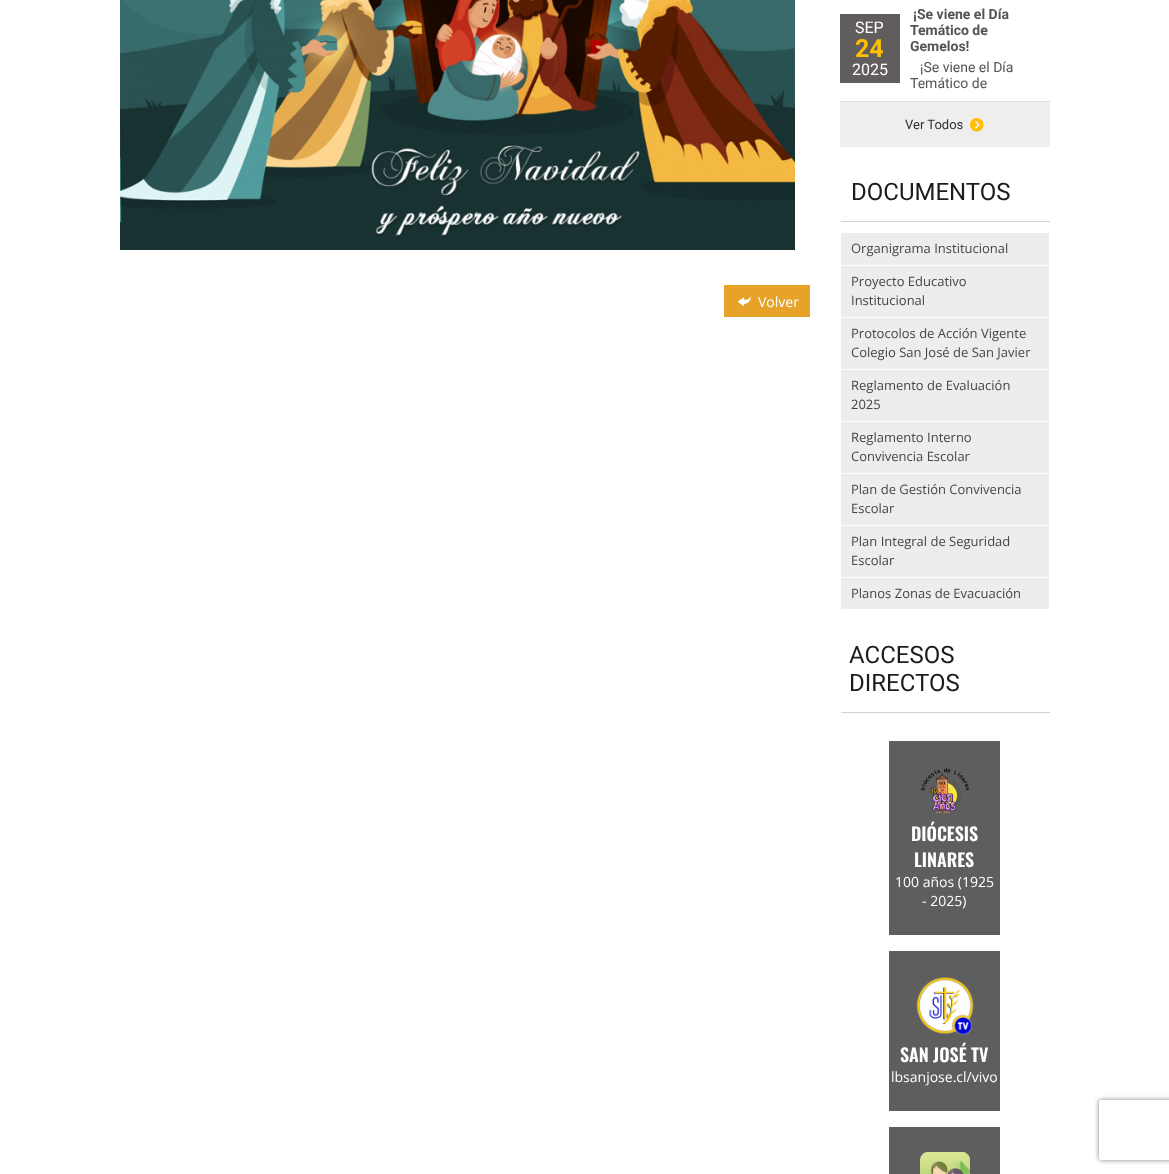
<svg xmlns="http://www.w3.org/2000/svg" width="1169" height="1174">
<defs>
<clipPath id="clip1"><path d="M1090 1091h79v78h-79zm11 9h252c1 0 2 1 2 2v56c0 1-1 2-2 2h-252c-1 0-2-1-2-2v-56c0-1 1-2 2-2z" clip-rule="evenodd"/></clipPath>
</defs>
<rect width="100%" height="100%" fill="#fff"/>
<image x="120" y="0" width="675" height="250" href="media/1.png"/>
<rect x="724" y="285" width="86" height="32" fill="#e7a229"/>
<image x="738" y="296" width="13" height="10" href="media/2.png"/>
<text x="758" y="307" style="font-family:Open Sans;font-size:14px;fill:#fff">Volver</text>
<rect x="840" y="101" width="210" height="1" fill="#dedede"/>
<rect x="840" y="14" width="60" height="69" fill="#615d5c"/>
<text x="855" y="33" style="font-family:Roboto;font-size:16px;fill:#fff">SEP</text>
<text x="855" y="57" style="font-family:Roboto;font-size:25px;font-weight:bold;fill:#ffc000">24</text>
<text x="852" y="75" style="font-family:Roboto;font-size:16px;fill:#fff">2025</text>
<text x="913" y="19" style="font-family:Roboto;font-size:14px;font-weight:bold;fill:#545454">¡Se viene el Día</text>
<text x="910" y="35" style="font-family:Roboto;font-size:14px;font-weight:bold;fill:#545454">Temático de</text>
<text x="910" y="51" style="font-family:Roboto;font-size:14px;font-weight:bold;fill:#545454">Gemelos!</text>
<text x="920" y="72" style="font-family:Roboto;font-size:14px;fill:#545454">¡Se viene el Día</text>
<text x="910" y="88" style="font-family:Roboto;font-size:14px;fill:#545454">Temático de</text>
<rect x="840" y="102" width="210" height="45" fill="#eee"/>
<text x="905" y="129" style="font-family:Roboto;font-size:13px;fill:#303030">Ver Todos</text>
<image x="970" y="117" width="14" height="15" href="media/3.png"/>
<rect x="840" y="221" width="210" height="1" fill="#d2d2d2"/>
<rect x="840" y="221" width="1" height="1" fill="#fff"/>
<text x="851" y="200" style="font-family:Roboto;font-size:24px;fill:#1c1c1c">DOCUMENTOS</text>
<rect x="841" y="233" width="208" height="32" fill="#ededed"/>
<text x="851" y="253" style="font-family:Open Sans;font-size:13px;fill:#464646">Organigrama Institucional</text>
<rect x="841" y="266" width="208" height="51" fill="#ededed"/>
<text x="851" y="286" style="font-family:Open Sans;font-size:13px;fill:#464646">Proyecto Educativo</text>
<text x="851" y="305" style="font-family:Open Sans;font-size:13px;fill:#464646">Institucional</text>
<rect x="841" y="318" width="208" height="51" fill="#ededed"/>
<text x="851" y="338" style="font-family:Open Sans;font-size:13px;fill:#464646">Protocolos de Acción Vigente</text>
<text x="851" y="357" style="font-family:Open Sans;font-size:13px;fill:#464646">Colegio San José de San Javier</text>
<rect x="841" y="370" width="208" height="51" fill="#ededed"/>
<text x="851" y="390" style="font-family:Open Sans;font-size:13px;fill:#464646">Reglamento de Evaluación</text>
<text x="851" y="409" style="font-family:Open Sans;font-size:13px;fill:#464646">2025</text>
<rect x="841" y="422" width="208" height="51" fill="#ededed"/>
<text x="851" y="442" style="font-family:Open Sans;font-size:13px;fill:#464646">Reglamento Interno</text>
<text x="851" y="461" style="font-family:Open Sans;font-size:13px;fill:#464646">Convivencia Escolar</text>
<rect x="841" y="474" width="208" height="51" fill="#ededed"/>
<text x="851" y="494" style="font-family:Open Sans;font-size:13px;fill:#464646">Plan de Gestión Convivencia</text>
<text x="851" y="513" style="font-family:Open Sans;font-size:13px;fill:#464646">Escolar</text>
<rect x="841" y="526" width="208" height="51" fill="#ededed"/>
<text x="851" y="546" style="font-family:Open Sans;font-size:13px;fill:#464646">Plan Integral de Seguridad</text>
<text x="851" y="565" style="font-family:Open Sans;font-size:13px;fill:#464646">Escolar</text>
<rect x="841" y="578" width="208" height="31" fill="#ededed"/>
<text x="851" y="598" style="font-family:Open Sans;font-size:13px;fill:#464646">Planos Zonas de Evacuación</text>
<rect x="840" y="712" width="210" height="1" fill="#d2d2d2"/>
<rect x="840" y="712" width="1" height="1" fill="#fff"/>
<text x="849" y="663" style="font-family:Roboto;font-size:24px;fill:#1c1c1c">ACCESOS</text>
<text x="849" y="691" style="font-family:Roboto;font-size:24px;fill:#1c1c1c">DIRECTOS</text>
<rect x="889" y="741" width="111" height="194" fill="#5e5e5e"/>
<image x="921" y="767" width="49" height="47" href="media/4.png"/>
<text x="911" y="841" style="font-family:Oswald;font-size:18px;font-weight:600;fill:#fff">DIÓCESIS</text>
<text x="914" y="867" style="font-family:Oswald;font-size:18px;font-weight:600;fill:#fff">LINARES</text>
<text x="895" y="887" style="font-family:Open Sans;font-size:14px;fill:#fff">100 años (1925</text>
<text x="922" y="906" style="font-family:Open Sans;font-size:14px;fill:#fff">- 2025)</text>
<rect x="889" y="951" width="111" height="160" fill="#5e5e5e"/>
<image x="916" y="977" width="58" height="58" href="media/5.png"/>
<text x="900" y="1062" style="font-family:Oswald;font-size:18px;font-weight:600;fill:#fff">SAN JOSÉ TV</text>
<text x="891" y="1082" style="font-family:Open Sans;font-size:14px;fill:#fff">lbsanjose.cl/vivo</text>
<rect x="889" y="1127" width="111" height="47" fill="#5e5e5e"/>
<image x="920" y="1152" width="50" height="22" href="media/6.png"/>
<g clip-path="url(#clip1)">
<rect x="1099" y="1100" width="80" height="60" rx="2" fill="#808080" filter="blur(2.5px)"/>
</g>
</svg>
